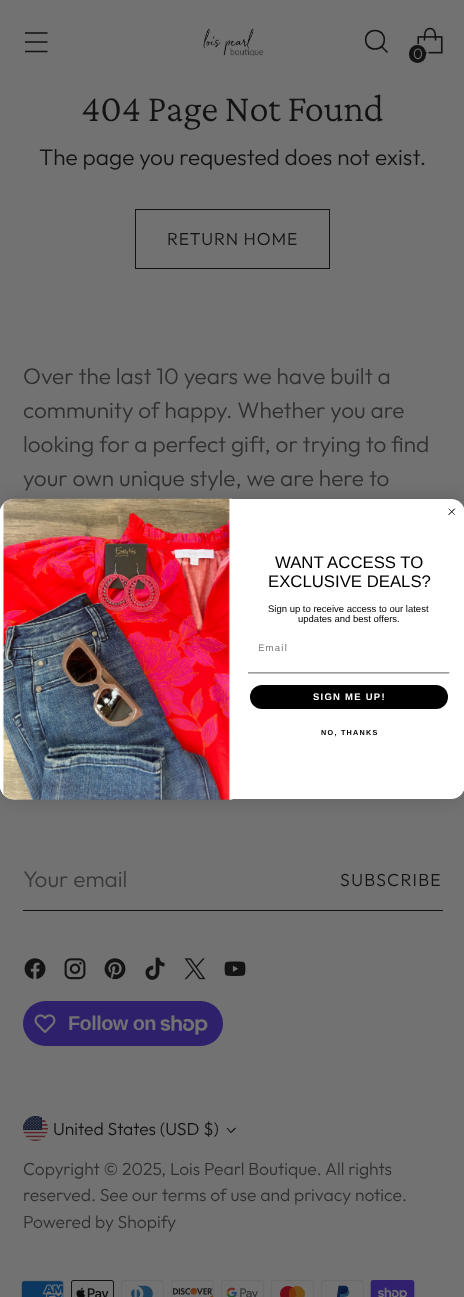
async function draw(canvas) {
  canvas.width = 464
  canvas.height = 1297
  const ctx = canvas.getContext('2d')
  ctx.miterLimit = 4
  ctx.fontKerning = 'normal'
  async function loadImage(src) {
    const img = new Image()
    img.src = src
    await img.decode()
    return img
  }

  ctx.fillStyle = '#727272'
  ctx.fillRect(0, 0, 464, 1297)
  ctx.beginPath()
  ctx.moveTo(25, 42)
  ctx.lineTo(47.5, 42)
  ctx.moveTo(25, 33)
  ctx.lineTo(47.5, 33)
  ctx.moveTo(25, 51.5)
  ctx.lineTo(47.5, 51.5)
  ctx.strokeStyle = '#131313'
  ctx.lineWidth = 1.6
  ctx.stroke()
  ctx.drawImage(await loadImage('image0.png'), 203, 28, 61, 29)
  ctx.beginPath()
  ctx.moveTo(375, 49)
  ctx.bezierCurveTo(387.5, 49, 387.5, 30.5, 375, 30.5)
  ctx.bezierCurveTo(362.5, 30.5, 362.5, 49, 375, 49)
  ctx.closePath()
  ctx.lineCap = 'round'
  ctx.stroke()
  ctx.beginPath()
  ctx.moveTo(381.5, 46.5)
  ctx.lineTo(387.5, 52.5)
  ctx.lineCap = 'butt'
  ctx.stroke()
  ctx.drawImage(await loadImage('image1.png'), 417, 27, 26, 27)
  ctx.beginPath()
  ctx.arc(418.5, 54.5, 9.5, 0, 2 * Math.PI)
  ctx.strokeStyle = '#727272'
  ctx.lineWidth = 2
  ctx.stroke()
  ctx.fillStyle = '#131313'
  ctx.beginPath()
  ctx.roundRect(409, 45, 17, 18, 8.5)
  ctx.fill()
  ctx.font = '300 15px Outfit'
  ctx.fillStyle = '#727272'
  ctx.fillText('0', 413, 59)
  ctx.letterSpacing = '-0.4px'
  ctx.font = '300 39px Crimson Pro'
  ctx.fillStyle = '#131313'
  ctx.fillText('404 Page Not Found', 81, 121)
  ctx.letterSpacing = '0px'
  ctx.font = '300 22.6px Outfit'
  ctx.fillText('The page you requested does not exist.', 39, 165)
  ctx.strokeStyle = '#131313'
  ctx.lineWidth = 1
  ctx.strokeRect(135.5, 209.5, 194, 59)
  ctx.letterSpacing = '0.9px'
  ctx.font = '300 17.5px Outfit'
  ctx.fillText('RETURN HOME', 167, 245)
  ctx.letterSpacing = '0px'
  ctx.font = '300 22.6px Outfit'
  ctx.fillStyle = '#2f2f2f'
  ctx.fillText('Over the last 10 years we have built a', 23, 384)
  ctx.fillText('community of happy. Whether you are', 23, 418)
  ctx.fillText('looking for a perfect gift, or trying to find', 23, 452)
  ctx.fillText('your own unique style, we are here to', 23, 486)
  ctx.fillStyle = '#131313'
  ctx.fillRect(23, 910, 420, 1)
  ctx.fillStyle = '#393939'
  ctx.fillText('Your email', 23, 887)
  ctx.letterSpacing = '1.25px'
  ctx.font = '300 17.5px Outfit'
  ctx.fillStyle = '#131313'
  ctx.fillText('SUBSCRIBE', 340, 886)
  ctx.drawImage(await loadImage('image2.png'), 24, 958, 22, 21)
  ctx.drawImage(await loadImage('image3.png'), 64, 958, 22, 22)
  ctx.drawImage(await loadImage('image4.png'), 104, 958, 22, 22)
  ctx.drawImage(await loadImage('image5.png'), 145, 957, 20, 23)
  ctx.drawImage(await loadImage('image6.png'), 184, 958, 22, 22)
  ctx.drawImage(await loadImage('image7.png'), 224, 961, 22, 16)
  ctx.fillStyle = '#2e206a'
  ctx.beginPath()
  ctx.roundRect(23, 1001, 200, 45, 22.5)
  ctx.fill()
  ctx.drawImage(await loadImage('image8.png'), 34, 1014, 22, 20)
  ctx.letterSpacing = '-0.6px'
  ctx.font = 'bold 20px Liberation Sans'
  ctx.fillStyle = '#727272'
  ctx.fillText('Follow on', 68, 1030)
  ctx.drawImage(await loadImage('image9.png'), 160, 1015, 48, 20)
  ctx.drawImage(await loadImage('image10.png'), 23, 1116, 25, 25)
  ctx.letterSpacing = '0px'
  ctx.font = '300 17.5px Outfit'
  ctx.fillStyle = '#131313'
  ctx.fillText('United States (USD $)', 53, 1135)
  ctx.beginPath()
  ctx.moveTo(227, 1128)
  ctx.lineTo(231, 1132.5)
  ctx.lineTo(235.5, 1128)
  ctx.lineWidth = 1.1
  ctx.stroke()
  ctx.fillStyle = '#2f2f2f'
  ctx.fillText('Copyright © 2025, Lois Pearl Boutique.', 23, 1175)
  ctx.fillText('All rights', 325, 1175)
  ctx.fillText('reserved. See our terms of use and privacy notice.', 23, 1201)
  ctx.fillText('Powered by Shopify', 23, 1228)
  ctx.drawImage(await loadImage('image11.png'), 21, 1280, 43, 17)
  ctx.drawImage(await loadImage('image12.png'), 71, 1280, 43, 17)
  ctx.drawImage(await loadImage('image13.png'), 121, 1280, 43, 17)
  ctx.drawImage(await loadImage('image14.png'), 171, 1280, 43, 17)
  ctx.drawImage(await loadImage('image15.png'), 221, 1280, 43, 17)
  ctx.drawImage(await loadImage('image16.png'), 271, 1280, 43, 17)
  ctx.drawImage(await loadImage('image17.png'), 321, 1280, 43, 17)
  ctx.drawImage(await loadImage('image18.png'), 370, 1280, 45, 17)
  ctx.fillStyle = '#00000026'
  ctx.filter = 'blur(9px)'
  ctx.beginPath()
  ctx.roundRect(0, 499, 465, 300, 14)
  ctx.fill()
  ctx.filter = 'none'
  ctx.fillStyle = '#fff'
  ctx.beginPath()
  ctx.roundRect(0, 499, 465, 300, 14)
  ctx.fill()
  ctx.beginPath()
  ctx.moveTo(449, 509)
  ctx.lineTo(454.5, 514.5)
  ctx.moveTo(449, 514.5)
  ctx.lineTo(454.5, 509)
  ctx.closePath()
  ctx.strokeStyle = '#000'
  ctx.lineWidth = 0.7
  ctx.lineCap = 'round'
  ctx.lineJoin = 'round'
  ctx.stroke()
  ctx.fillStyle = '#fefefe'
  ctx.beginPath()
  ctx.roundRect(0, 499, 233, 300, [14, 0, 0, 14])
  ctx.fill()
  ctx.drawImage(await loadImage('image19.png'), 0, 498, 233, 302)
  ctx.font = '16.75px Liberation Sans'
  ctx.fillStyle = '#000'
  ctx.fillText('WANT ACCESS TO', 275, 568)
  ctx.fillText('EXCLUSIVE DEALS?', 268, 587)
  ctx.font = '9.5px Liberation Sans'
  ctx.fillText('Sign up to receive access to our latest', 268, 612)
  ctx.fillText('updates and best offers.', 298, 622)
  ctx.save()
  ctx.beginPath()
  ctx.rect(259, 644, 190, 10)
  ctx.clip()
  ctx.letterSpacing = '1.25px'
  ctx.fillStyle = '#727272'
  ctx.fillText('Email', 258, 651)
  ctx.restore()
  ctx.drawImage(await loadImage('image20.png'), 248, 672, 202, 2)
  ctx.beginPath()
  ctx.roundRect(250, 685, 198, 24, 12)
  ctx.fill()
  ctx.letterSpacing = '1.25px'
  ctx.font = 'bold 9.5px Liberation Sans'
  ctx.fillStyle = '#fff'
  ctx.fillText('SIGN ME UP!', 313, 700)
  ctx.font = 'bold 7.25px Liberation Sans'
  ctx.fillStyle = '#000'
  ctx.fillText('NO, THANKS', 321, 735)
}

draw(document.querySelector('canvas'))
